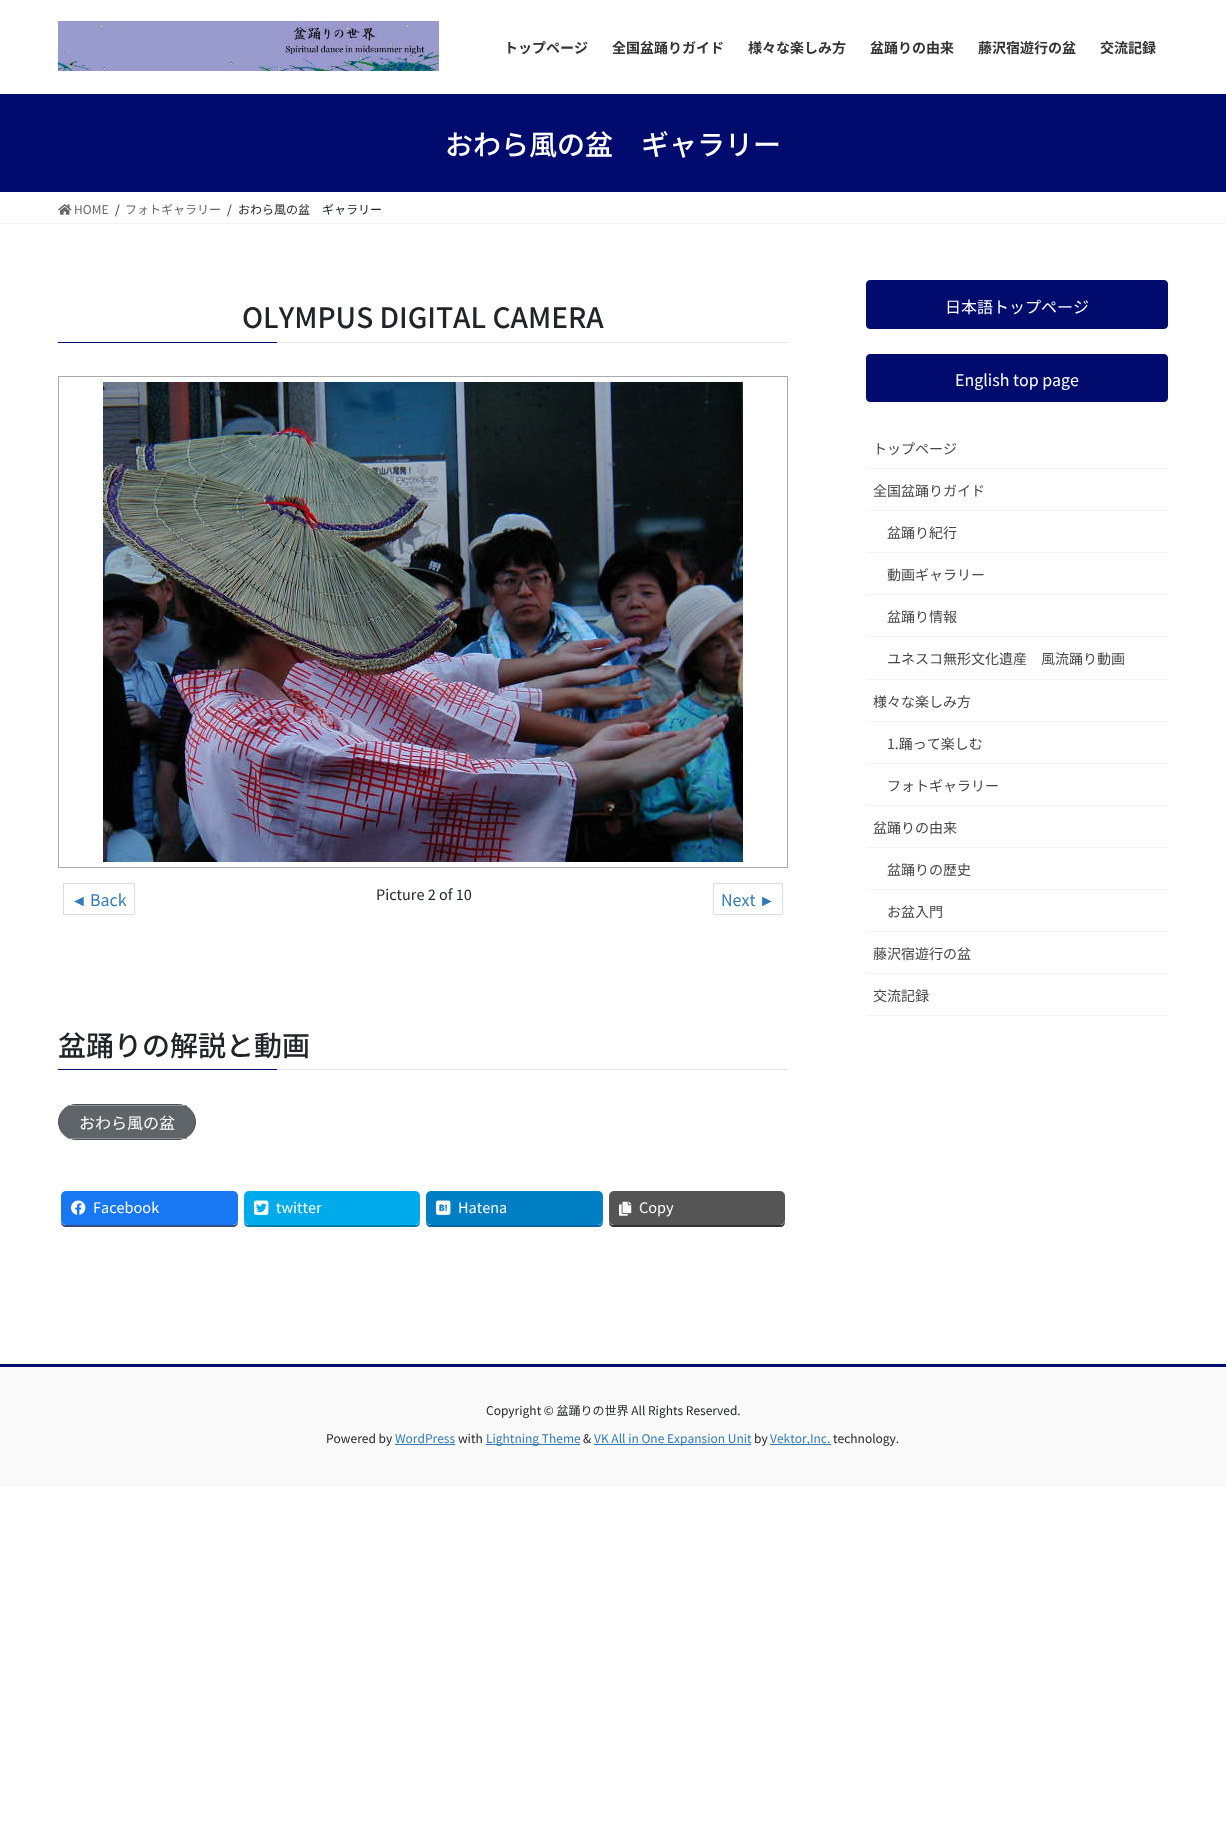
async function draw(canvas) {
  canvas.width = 1226
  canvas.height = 1842
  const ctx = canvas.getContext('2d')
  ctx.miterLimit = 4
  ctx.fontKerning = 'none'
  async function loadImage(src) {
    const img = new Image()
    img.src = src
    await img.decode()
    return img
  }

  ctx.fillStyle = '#fff'
  ctx.fillRect(0, 0, 1226, 1842)
  ctx.drawImage(await loadImage('image0.png'), 58, 21, 381, 50)
  ctx.font = 'bold 14px Noto Sans JP'
  ctx.fillStyle = '#333'
  ctx.fillText('トップページ', 504, 53)
  ctx.fillText('全国盆踊りガイド', 612, 53)
  ctx.fillText('様々な楽しみ方', 748, 53)
  ctx.fillText('盆踊りの由来', 870, 53)
  ctx.fillText('藤沢宿遊行の盆', 978, 53)
  ctx.fillText('交流記録', 1100, 53)
  ctx.fillStyle = '#000c6d'
  ctx.fillRect(0, 94, 1226, 98)
  ctx.font = '500 28px Noto Sans JP'
  ctx.fillStyle = '#fff'
  ctx.fillText('おわら風の盆　ギャラリー', 445, 155)
  ctx.fillStyle = '#f2f2f2'
  ctx.fillRect(0, 223, 1226, 1)
  ctx.drawImage(await loadImage('image1.png'), 58, 204, 14, 11)
  ctx.font = '12px Noto Sans JP'
  ctx.fillStyle = '#666'
  ctx.fillText('HOME', 74, 214)
  ctx.fillStyle = '#212529'
  ctx.fillText('/', 115, 214)
  ctx.fillStyle = '#666'
  ctx.fillText('フォトギャラリー', 125, 214)
  ctx.fillStyle = '#212529'
  ctx.fillText('/', 227, 214)
  ctx.fillText('おわら風の盆　ギャラリー', 238, 214)
  ctx.fillStyle = '#e6e6e6'
  ctx.fillRect(277, 342, 511, 1)
  ctx.font = '500 28px Noto Sans JP'
  ctx.fillStyle = '#212529'
  ctx.fillText('OLYMPUS DIGITAL CAMERA', 242, 328)
  ctx.fillStyle = '#000c6d'
  ctx.fillRect(58, 342, 219, 1)
  ctx.strokeStyle = '#a9a9a9'
  ctx.strokeRect(58.5, 376.5, 729, 491)
  ctx.drawImage(await loadImage('image2.png'), 103, 382, 640, 480)
  ctx.strokeStyle = '#ddd'
  ctx.strokeRect(63.5, 883.5, 71, 31)
  ctx.font = '16px Liberation Sans'
  ctx.fillStyle = '#337ab7'
  ctx.fillText('◄', 71, 906)
  ctx.font = '16px Noto Sans JP'
  ctx.fillText('Back', 90, 906)
  ctx.font = '14.5px Noto Sans JP'
  ctx.fillStyle = '#212529'
  ctx.fillText('Picture 2 of 10', 376, 900)
  ctx.strokeRect(713.5, 883.5, 69, 31)
  ctx.font = '16px Noto Sans JP'
  ctx.fillStyle = '#337ab7'
  ctx.fillText('Next', 721, 906)
  ctx.font = '16px Liberation Sans'
  ctx.fillText('►', 759, 906)
  ctx.fillStyle = '#e6e6e6'
  ctx.fillRect(277, 1069, 511, 1)
  ctx.font = '500 28px Noto Sans JP'
  ctx.fillStyle = '#212529'
  ctx.fillText('盆踊りの解説と動画', 58, 1056)
  ctx.fillStyle = '#000c6d'
  ctx.fillRect(58, 1069, 219, 1)
  ctx.fillStyle = '#5f6469'
  ctx.beginPath()
  ctx.roundRect(58.5, 1104.5, 137, 35, 17.5)
  ctx.fill()
  ctx.strokeStyle = '#4c5054'
  ctx.stroke()
  ctx.fillStyle = '#8f9396'
  ctx.fillRect(68, 1105, 119, 1)
  ctx.fillRect(68, 1138, 119, 1)
  ctx.font = '16px Noto Sans JP'
  ctx.fillStyle = '#fff'
  ctx.fillText('おわら風の盆', 79, 1129)
  ctx.fillStyle = '#344e84'
  ctx.beginPath()
  ctx.moveTo(61, 1220)
  ctx.lineTo(61, 1222)
  ctx.bezierCurveTo(61, 1225, 63, 1227, 66, 1227)
  ctx.lineTo(233, 1227)
  ctx.bezierCurveTo(236, 1227, 238, 1225, 238, 1222)
  ctx.lineTo(238, 1220)
  ctx.bezierCurveTo(238, 1223, 236, 1225, 233, 1225)
  ctx.lineTo(66, 1225)
  ctx.bezierCurveTo(63, 1225, 61, 1223, 61, 1220)
  ctx.closePath()
  ctx.fill()
  ctx.fillStyle = '#1877f2'
  ctx.beginPath()
  ctx.roundRect(61, 1191, 177, 34, 5)
  ctx.fill()
  ctx.drawImage(await loadImage('image3.png'), 71, 1200, 15, 15)
  ctx.font = '14.5px Noto Sans JP'
  ctx.fillStyle = '#fff'
  ctx.fillText('Facebook', 93, 1213)
  ctx.fillStyle = '#007eaa'
  ctx.beginPath()
  ctx.moveTo(244, 1220)
  ctx.lineTo(244, 1222)
  ctx.bezierCurveTo(244, 1225, 246, 1227, 249, 1227)
  ctx.lineTo(415, 1227)
  ctx.bezierCurveTo(418, 1227, 420, 1225, 420, 1222)
  ctx.lineTo(420, 1220)
  ctx.bezierCurveTo(420, 1223, 418, 1225, 415, 1225)
  ctx.lineTo(249, 1225)
  ctx.bezierCurveTo(246, 1225, 244, 1223, 244, 1220)
  ctx.closePath()
  ctx.fill()
  ctx.fillStyle = '#00abec'
  ctx.beginPath()
  ctx.roundRect(244, 1191, 176, 34, 5)
  ctx.fill()
  ctx.drawImage(await loadImage('image4.png'), 254, 1200, 15, 15)
  ctx.fillStyle = '#fff'
  ctx.fillText('twitter', 276, 1213)
  ctx.fillStyle = '#00679f'
  ctx.beginPath()
  ctx.moveTo(426, 1220)
  ctx.lineTo(426, 1222)
  ctx.bezierCurveTo(426, 1225, 428, 1227, 431, 1227)
  ctx.lineTo(598, 1227)
  ctx.bezierCurveTo(601, 1227, 603, 1225, 603, 1222)
  ctx.lineTo(603, 1220)
  ctx.bezierCurveTo(603, 1223, 601, 1225, 598, 1225)
  ctx.lineTo(431, 1225)
  ctx.bezierCurveTo(428, 1225, 426, 1223, 426, 1220)
  ctx.closePath()
  ctx.fill()
  ctx.fillStyle = '#007fc5'
  ctx.beginPath()
  ctx.roundRect(426, 1191, 177, 34, 5)
  ctx.fill()
  ctx.drawImage(await loadImage('image5.png'), 436, 1200, 15, 15)
  ctx.fillStyle = '#fff'
  ctx.fillText('Hatena', 458, 1213)
  ctx.fillStyle = '#333'
  ctx.beginPath()
  ctx.moveTo(609, 1220)
  ctx.lineTo(609, 1222)
  ctx.bezierCurveTo(609, 1225, 611, 1227, 614, 1227)
  ctx.lineTo(780, 1227)
  ctx.bezierCurveTo(783, 1227, 785, 1225, 785, 1222)
  ctx.lineTo(785, 1220)
  ctx.bezierCurveTo(785, 1223, 783, 1225, 780, 1225)
  ctx.lineTo(614, 1225)
  ctx.bezierCurveTo(611, 1225, 609, 1223, 609, 1220)
  ctx.closePath()
  ctx.fill()
  ctx.fillStyle = '#555'
  ctx.beginPath()
  ctx.roundRect(609, 1191, 176, 34, 5)
  ctx.fill()
  ctx.drawImage(await loadImage('image6.png'), 619, 1201, 13, 15)
  ctx.fillStyle = '#fff'
  ctx.fillText('Copy', 639, 1213)
  ctx.fillStyle = '#000c6d'
  ctx.beginPath()
  ctx.roundRect(866.5, 280.5, 301, 48, 3.5)
  ctx.fill()
  ctx.strokeStyle = '#000c6d'
  ctx.stroke()
  ctx.font = '16px Noto Sans JP'
  ctx.fillStyle = '#fff'
  ctx.fillText('日本語トップページ', 945, 313)
  ctx.fillStyle = '#000c6d'
  ctx.beginPath()
  ctx.roundRect(866.5, 354.5, 301, 47, 3.5)
  ctx.fill()
  ctx.stroke()
  ctx.fillStyle = '#fff'
  ctx.fillText('English top page', 955, 386)
  ctx.fillStyle = '#f2f2f2'
  ctx.fillRect(866, 468, 302, 1)
  ctx.font = '14px Noto Sans JP'
  ctx.fillStyle = '#464646'
  ctx.fillText('トップページ', 873, 454)
  ctx.fillStyle = '#f2f2f2'
  ctx.fillRect(866, 510, 302, 1)
  ctx.fillStyle = '#464646'
  ctx.fillText('全国盆踊りガイド', 873, 496)
  ctx.fillStyle = '#f2f2f2'
  ctx.fillRect(866, 552, 302, 1)
  ctx.fillStyle = '#464646'
  ctx.fillText('盆踊り紀行', 887, 538)
  ctx.fillStyle = '#f2f2f2'
  ctx.fillRect(866, 594, 302, 1)
  ctx.fillStyle = '#464646'
  ctx.fillText('動画ギャラリー', 887, 580)
  ctx.fillStyle = '#f2f2f2'
  ctx.fillRect(866, 636, 302, 1)
  ctx.fillStyle = '#464646'
  ctx.fillText('盆踊り情報', 887, 622)
  ctx.fillStyle = '#f2f2f2'
  ctx.fillRect(866, 679, 302, 1)
  ctx.fillStyle = '#464646'
  ctx.fillText('ユネスコ無形文化遺産　風流踊り動画', 887, 664)
  ctx.fillStyle = '#f2f2f2'
  ctx.fillRect(866, 721, 302, 1)
  ctx.fillStyle = '#464646'
  ctx.fillText('様々な楽しみ方', 873, 707)
  ctx.fillStyle = '#f2f2f2'
  ctx.fillRect(866, 763, 302, 1)
  ctx.fillStyle = '#464646'
  ctx.fillText('1.踊って楽しむ', 887, 749)
  ctx.fillStyle = '#f2f2f2'
  ctx.fillRect(866, 805, 302, 1)
  ctx.fillStyle = '#464646'
  ctx.fillText('フォトギャラリー', 887, 791)
  ctx.fillStyle = '#f2f2f2'
  ctx.fillRect(866, 847, 302, 1)
  ctx.fillStyle = '#464646'
  ctx.fillText('盆踊りの由来', 873, 833)
  ctx.fillStyle = '#f2f2f2'
  ctx.fillRect(866, 889, 302, 1)
  ctx.fillStyle = '#464646'
  ctx.fillText('盆踊りの歴史', 887, 875)
  ctx.fillStyle = '#f2f2f2'
  ctx.fillRect(866, 931, 302, 1)
  ctx.fillStyle = '#464646'
  ctx.fillText('お盆入門', 887, 917)
  ctx.fillStyle = '#f2f2f2'
  ctx.fillRect(866, 973, 302, 1)
  ctx.fillStyle = '#464646'
  ctx.fillText('藤沢宿遊行の盆', 873, 959)
  ctx.fillStyle = '#f2f2f2'
  ctx.fillRect(866, 1015, 302, 1)
  ctx.fillStyle = '#464646'
  ctx.fillText('交流記録', 873, 1001)
  ctx.fillStyle = '#f9f9f9'
  ctx.fillRect(0, 1367, 1226, 120)
  ctx.fillStyle = '#000c6d'
  ctx.fillRect(0, 1364, 1226, 3)
  ctx.font = '12px Noto Sans JP'
  ctx.fillStyle = '#212529'
  ctx.fillText('Copyright © 盆踊りの世界 All Rights Reserved.', 486, 1415)
  ctx.fillText('Powered by', 326, 1443)
  ctx.fillStyle = '#337ab7'
  ctx.fillText('WordPress', 395, 1443)
  ctx.fillRect(395, 1444, 60, 1)
  ctx.fillStyle = '#212529'
  ctx.fillText('with', 458, 1443)
  ctx.fillStyle = '#337ab7'
  ctx.fillRect(486, 1444, 94, 1)
  ctx.fillText('Lightning Theme', 486, 1443)
  ctx.fillStyle = '#212529'
  ctx.fillText('&', 583, 1443)
  ctx.fillStyle = '#337ab7'
  ctx.fillRect(594, 1444, 157, 1)
  ctx.fillText('VK All in One Expansion Unit', 594, 1443)
  ctx.fillStyle = '#212529'
  ctx.fillText('by', 754, 1443)
  ctx.fillStyle = '#337ab7'
  ctx.fillRect(770, 1444, 61, 1)
  ctx.fillText('Vektor,Inc.', 770, 1443)
  ctx.fillStyle = '#212529'
  ctx.fillText('technology.', 833, 1443)
}

draw(document.querySelector('canvas'))
